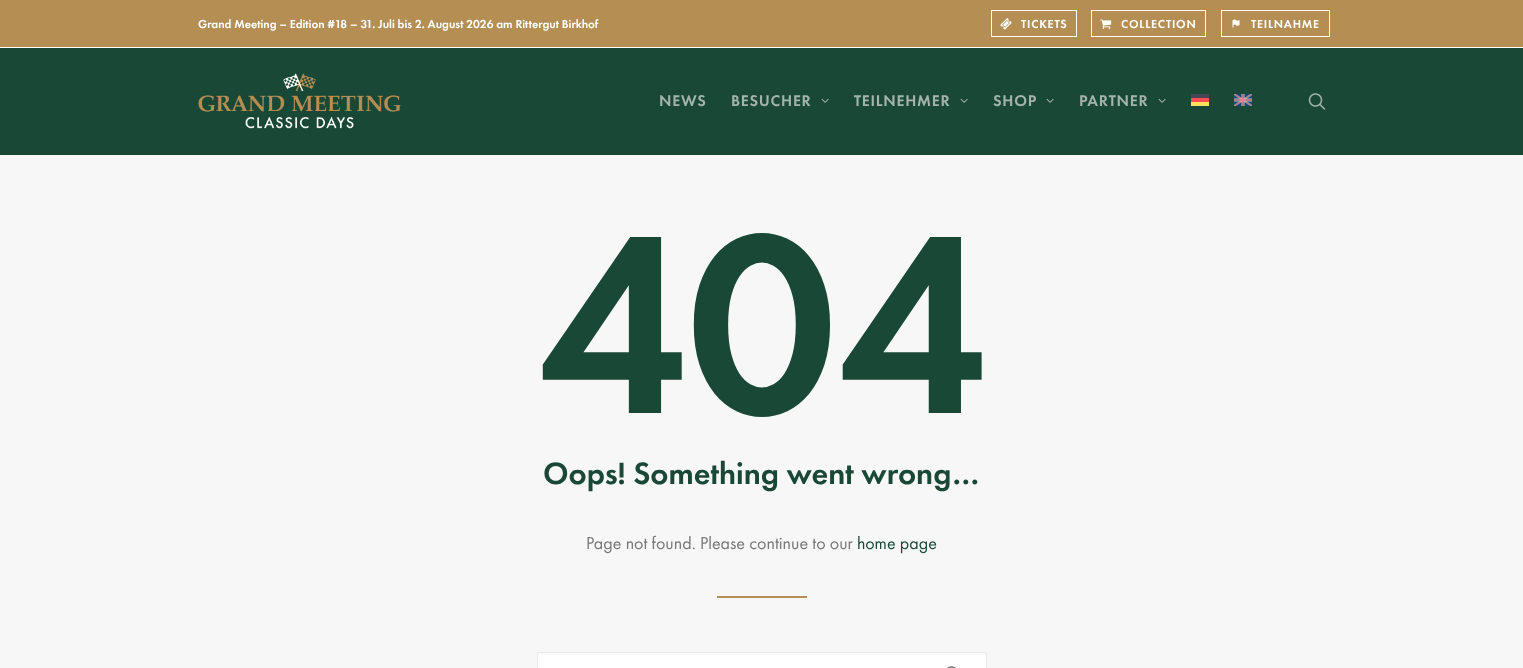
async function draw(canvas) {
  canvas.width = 1523
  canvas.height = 668
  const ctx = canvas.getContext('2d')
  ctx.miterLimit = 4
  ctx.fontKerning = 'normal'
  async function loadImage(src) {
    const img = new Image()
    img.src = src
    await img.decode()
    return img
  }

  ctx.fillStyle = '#f7f7f7'
  ctx.fillRect(0, 0, 1523, 668)
  ctx.fillStyle = '#b58e53'
  ctx.fillRect(0, 0, 1523, 47)
  ctx.fillStyle = '#fff'
  ctx.fillRect(0, 47, 1523, 1)
  ctx.font = '500 12px Futura PT'
  ctx.fillText('Grand Meeting – Edition #18 – 31. Juli bis 2. August 2026 am Rittergut Birkhof', 198, 28)
  ctx.strokeStyle = '#fff'
  ctx.strokeRect(991.5, 10.5, 85, 26)
  ctx.drawImage(await loadImage('image0.png'), 1000, 18, 12, 12)
  ctx.letterSpacing = '0.75px'
  ctx.fillText('TICKETS', 1021, 28)
  ctx.strokeRect(1091.5, 10.5, 114, 26)
  ctx.drawImage(await loadImage('image1.png'), 1100, 19, 12, 10)
  ctx.fillText('COLLECTION', 1121, 28)
  ctx.strokeRect(1221.5, 10.5, 108, 26)
  ctx.drawImage(await loadImage('image2.png'), 1232, 19, 8, 9)
  ctx.fillText('TEILNAHME', 1251, 28)
  ctx.fillStyle = '#194936'
  ctx.fillRect(0, 48, 1523, 107)
  ctx.drawImage(await loadImage('image3.png'), 198, 73, 203, 56)
  ctx.font = '500 16px Futura PT'
  ctx.fillStyle = '#a4b3ac'
  ctx.fillText('NEWS', 659, 106)
  ctx.fillText('BESUCHER', 731, 106)
  ctx.drawImage(await loadImage('image4.png'), 821, 98, 8, 5)
  ctx.fillText('TEILNEHMER', 854, 106)
  ctx.drawImage(await loadImage('image4.png'), 960, 98, 8, 5)
  ctx.fillText('SHOP', 993, 106)
  ctx.drawImage(await loadImage('image4.png'), 1046, 98, 8, 5)
  ctx.fillText('PARTNER', 1079, 106)
  ctx.drawImage(await loadImage('image4.png'), 1158, 98, 8, 5)
  ctx.fillStyle = '#ff4b55'
  ctx.fillRect(1191, 98, 18, 4)
  ctx.fillStyle = '#ffe15a'
  ctx.fillRect(1191, 102, 18, 4)
  ctx.fillStyle = '#464655'
  ctx.fillRect(1191, 94, 18, 4)
  ctx.drawImage(await loadImage('image5.png'), 1234, 94, 18, 12)
  ctx.drawImage(await loadImage('image6.png'), 1308, 93, 18, 17)
  ctx.letterSpacing = '0px'
  ctx.font = '500 264px Futura PT'
  ctx.fillStyle = '#194936'
  ctx.fillText('404', 537, 413)
  ctx.font = '500 32px Futura PT'
  ctx.fillText('Oops! Something went wrong…', 543, 484)
  ctx.font = '18px Futura PT'
  ctx.fillStyle = '#777'
  ctx.fillText('Page not found. Please continue to our', 586, 549)
  ctx.fillStyle = '#194936'
  ctx.fillText('home page', 857, 549)
  ctx.fillStyle = '#b58e53'
  ctx.fillRect(717, 596, 90, 2)
  ctx.fillStyle = '#fff'
  ctx.beginPath()
  ctx.roundRect(537, 652, 450, 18, 2)
  ctx.fill()
  ctx.fillStyle = '#f9f9f9'
  ctx.beginPath()
  ctx.moveTo(539, 655)
  ctx.lineTo(985, 655)
  ctx.bezierCurveTo(986, 655, 986, 655, 986, 656)
  ctx.lineTo(986, 653)
  ctx.lineTo(985, 653)
  ctx.lineTo(539, 653)
  ctx.bezierCurveTo(538, 653, 538, 655, 538, 656)
  ctx.bezierCurveTo(538, 655, 538, 655, 539, 655)
  ctx.closePath()
  ctx.fill()
  ctx.beginPath()
  ctx.roundRect(537.5, 652.5, 449, 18, 1.5)
  ctx.strokeStyle = '#eaeaea'
  ctx.stroke()
  ctx.drawImage(await loadImage('image7.png'), 947, 666, 9, 2)
}

draw(document.querySelector('canvas'))
